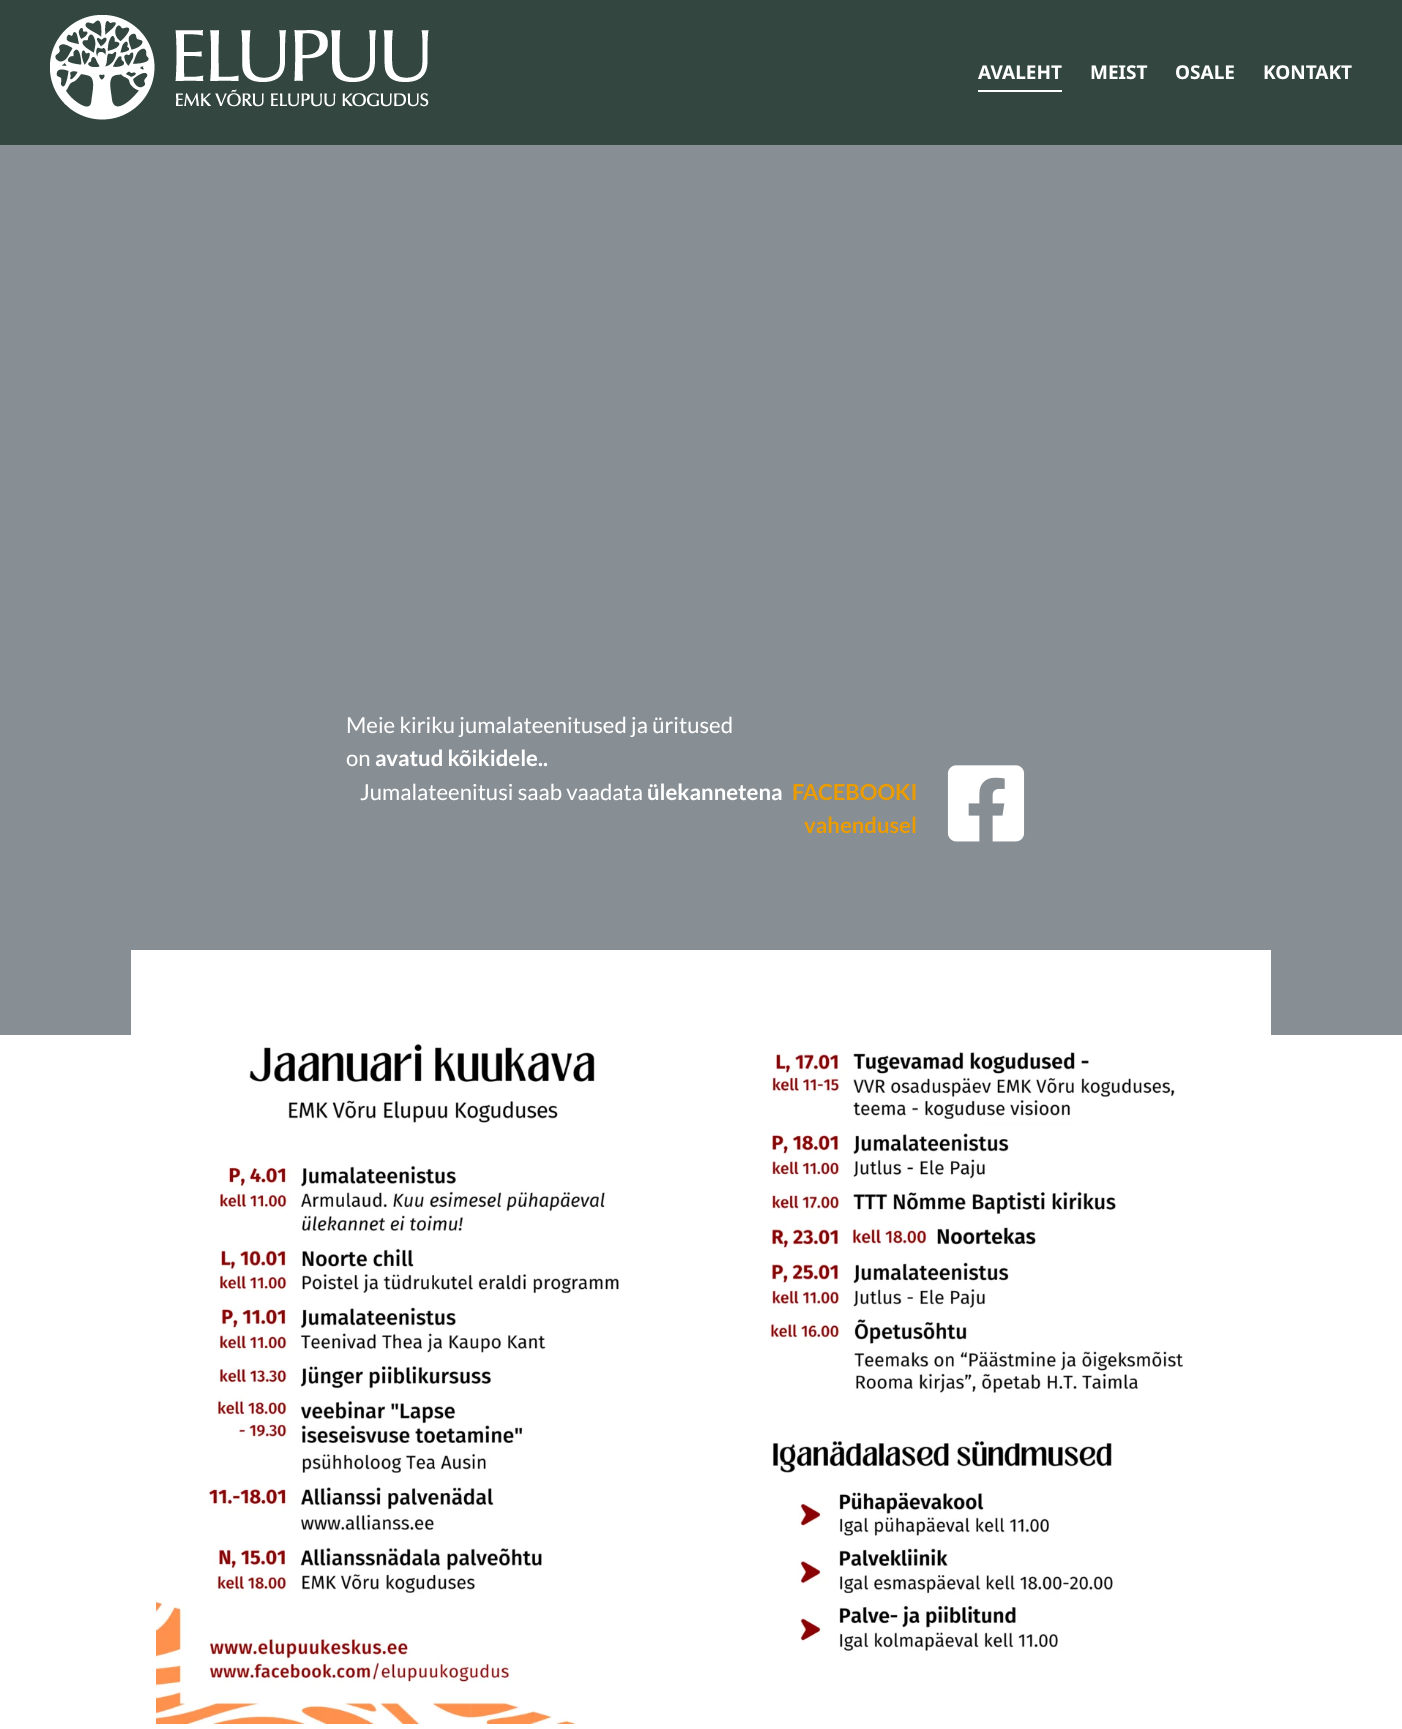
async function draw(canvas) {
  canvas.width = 1402
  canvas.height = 1729
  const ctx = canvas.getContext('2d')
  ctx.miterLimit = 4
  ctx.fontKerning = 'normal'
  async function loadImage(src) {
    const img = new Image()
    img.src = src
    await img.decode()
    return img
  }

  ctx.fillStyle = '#fff'
  ctx.fillRect(0, 0, 1402, 1729)
  ctx.fillStyle = '#334740'
  ctx.fillRect(0, 0, 1402, 145)
  ctx.drawImage(await loadImage('image0.png'), 50, 15, 379, 105)
  ctx.font = 'bold 19px Noto Sans'
  ctx.fillStyle = '#fff'
  ctx.fillText('AVALEHT', 978, 79)
  ctx.fillRect(978, 90, 84, 2)
  ctx.fillText('MEIST', 1090, 79)
  ctx.fillText('OSALE', 1175, 79)
  ctx.fillText('KONTAKT', 1263, 79)
  ctx.fillStyle = '#878e94'
  ctx.fillRect(0, 145, 1402, 890)
  ctx.font = '22.1px Lato'
  ctx.fillStyle = '#fff'
  ctx.fillText('Meie kiriku jumalateenitused ja üritused', 346, 733)
  ctx.fillText('on', 346, 766)
  ctx.font = 'bold 22.1px Lato'
  ctx.fillText('avatud kõikidele..', 375, 766)
  ctx.font = '22.1px Lato'
  ctx.fillText('Jumalateenitusi saab vaadata', 360, 800)
  ctx.font = 'bold 22.1px Lato'
  ctx.fillText('ülekannetena', 647, 800)
  ctx.fillStyle = '#ea9c00'
  ctx.fillText('FACEBOOKI', 792, 800)
  ctx.fillText('vahendusel', 804, 833)
  ctx.drawImage(await loadImage('image1.png'), 947, 765, 78, 77)
  ctx.fillStyle = '#fff'
  ctx.fillRect(131, 950, 1140, 85)
  ctx.drawImage(await loadImage('image2.png'), 156, 1043, 463, 681)
  ctx.drawImage(await loadImage('image3.png'), 770, 1051, 413, 600)
}

draw(document.querySelector('canvas'))
